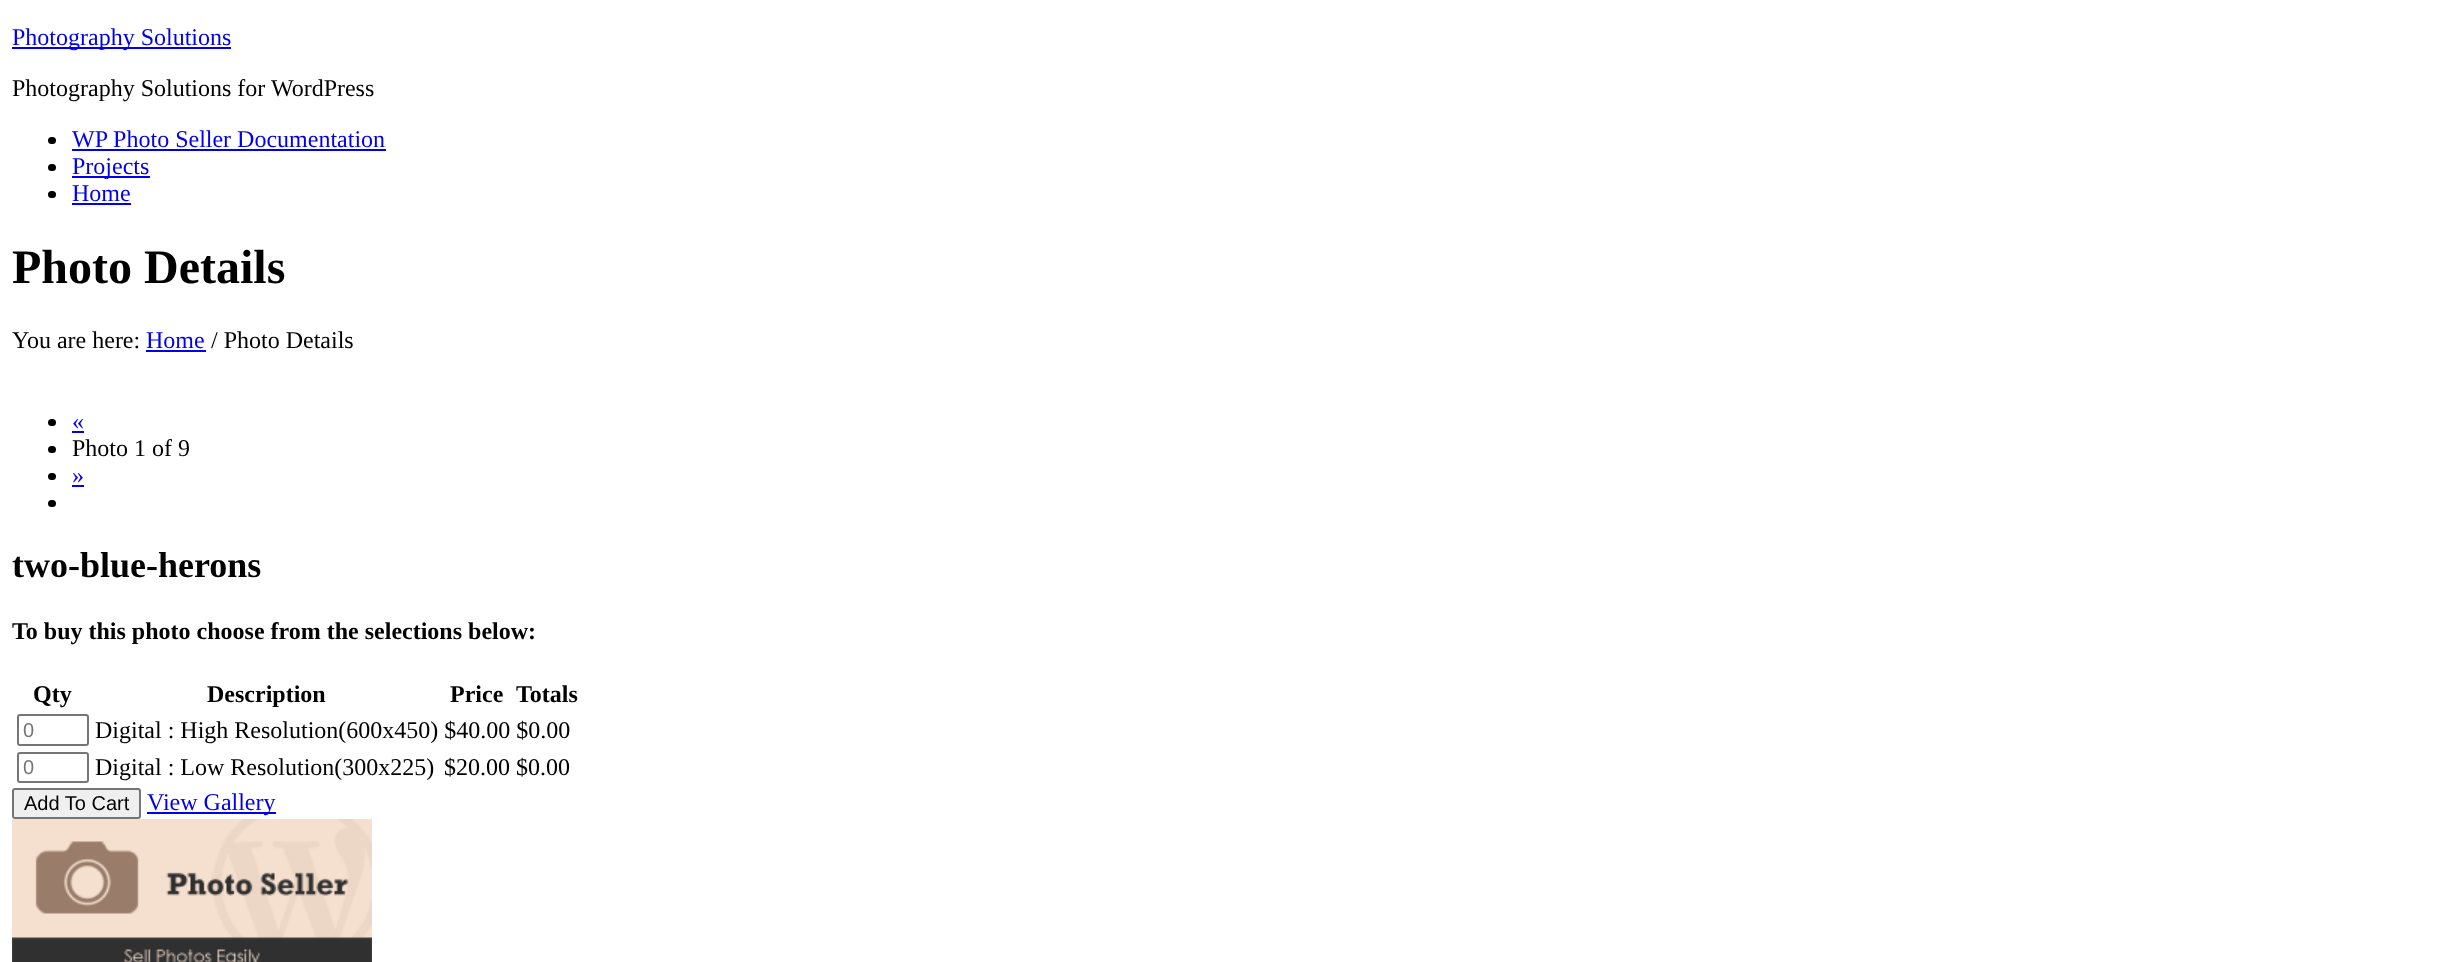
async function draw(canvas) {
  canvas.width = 2444
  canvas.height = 962
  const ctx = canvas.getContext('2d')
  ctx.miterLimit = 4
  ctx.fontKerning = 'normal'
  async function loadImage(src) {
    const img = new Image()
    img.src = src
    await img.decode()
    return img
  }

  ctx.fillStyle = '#fff'
  ctx.fillRect(0, 0, 2444, 962)
  ctx.fillStyle = '#00e'
  ctx.fillRect(12, 47, 219, 2)
  ctx.font = '24px Liberation Serif'
  ctx.fillText('Photography Solutions', 12, 45)
  ctx.fillStyle = '#000'
  ctx.fillText('Photography Solutions for WordPress', 12, 96)
  ctx.beginPath()
  ctx.roundRect(48, 137, 8, 7, 3.5)
  ctx.fill()
  ctx.fillStyle = '#00e'
  ctx.fillText('WP Photo Seller Documentation', 72, 147)
  ctx.fillRect(72, 149, 314, 2)
  ctx.fillStyle = '#000'
  ctx.beginPath()
  ctx.roundRect(48, 164, 8, 7, 3.5)
  ctx.fill()
  ctx.fillStyle = '#00e'
  ctx.fillRect(72, 176, 78, 2)
  ctx.fillText('Projects', 72, 174)
  ctx.fillStyle = '#000'
  ctx.beginPath()
  ctx.roundRect(48, 191, 8, 7, 3.5)
  ctx.fill()
  ctx.fillStyle = '#00e'
  ctx.fillText('Home', 72, 201)
  ctx.fillRect(72, 203, 59, 2)
  ctx.font = 'bold 48px Liberation Serif'
  ctx.fillStyle = '#000'
  ctx.fillText('Photo Details', 12, 283)
  ctx.font = '24px Liberation Serif'
  ctx.fillText('You are here:', 12, 348)
  ctx.fillStyle = '#00e'
  ctx.fillText('Home', 146, 348)
  ctx.fillRect(146, 350, 60, 2)
  ctx.fillStyle = '#000'
  ctx.fillText('/ Photo Details', 211, 348)
  ctx.beginPath()
  ctx.roundRect(48, 419, 8, 7, 3.5)
  ctx.fill()
  ctx.fillStyle = '#00e'
  ctx.fillText('«', 72, 429)
  ctx.fillRect(72, 431, 12, 2)
  ctx.fillStyle = '#000'
  ctx.beginPath()
  ctx.roundRect(48, 446, 8, 7, 3.5)
  ctx.fill()
  ctx.fillText('Photo 1 of 9', 72, 456)
  ctx.beginPath()
  ctx.roundRect(48, 473, 8, 7, 3.5)
  ctx.fill()
  ctx.fillStyle = '#00e'
  ctx.fillText('»', 72, 483)
  ctx.fillRect(72, 485, 12, 2)
  ctx.fillStyle = '#000'
  ctx.beginPath()
  ctx.roundRect(48, 500, 8, 7, 3.5)
  ctx.fill()
  ctx.font = 'bold 36px Liberation Serif'
  ctx.fillText('two-blue-herons', 12, 577)
  ctx.font = 'bold 24px Liberation Serif'
  ctx.fillText('To buy this photo choose from the selections below:', 12, 639)
  ctx.fillText('Qty', 33, 702)
  ctx.fillText('Description', 207, 702)
  ctx.fillText('Price', 450, 702)
  ctx.fillText('Totals', 516, 702)
  ctx.beginPath()
  ctx.roundRect(18, 715, 70, 30, 2)
  ctx.strokeStyle = '#767676'
  ctx.lineWidth = 2
  ctx.stroke()
  ctx.font = '20px Liberation Sans'
  ctx.fillStyle = '#757575'
  ctx.fillText('0', 23, 737)
  ctx.font = '24px Liberation Serif'
  ctx.fillStyle = '#000'
  ctx.fillText('Digital : High Resolution(600x450) $40.00 $0.00', 95, 738)
  ctx.beginPath()
  ctx.roundRect(18, 753, 70, 29, 2)
  ctx.stroke()
  ctx.font = '20px Liberation Sans'
  ctx.fillStyle = '#757575'
  ctx.fillText('0', 23, 774)
  ctx.font = '24px Liberation Serif'
  ctx.fillStyle = '#000'
  ctx.fillText('Digital : Low Resolution(300x225)', 95, 775)
  ctx.fillText('$20.00 $0.00', 444, 775)
  ctx.fillStyle = '#efefef'
  ctx.beginPath()
  ctx.roundRect(13, 789, 127, 29, 2)
  ctx.fill()
  ctx.stroke()
  ctx.font = '20px Liberation Sans'
  ctx.fillStyle = '#000'
  ctx.fillText('Add To Cart', 24, 810)
  ctx.fillStyle = '#00e'
  ctx.fillRect(147, 812, 129, 2)
  ctx.font = '24px Liberation Serif'
  ctx.fillText('View Gallery', 147, 810)
  ctx.drawImage(await loadImage('image0.png'), 12, 819, 360, 143)
}

draw(document.querySelector('canvas'))
